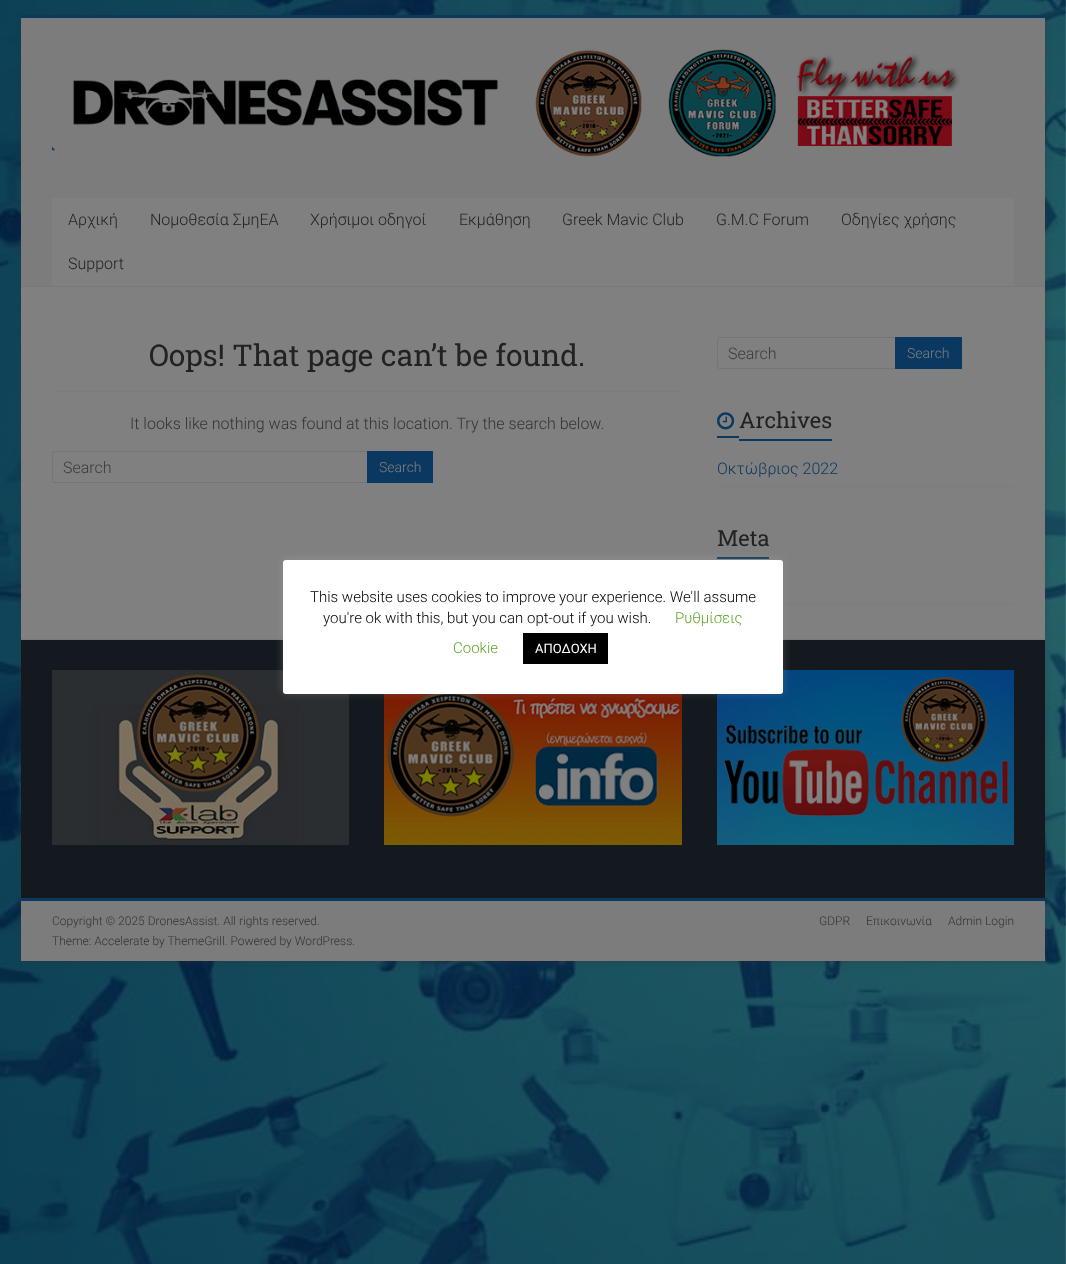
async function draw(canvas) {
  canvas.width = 1066
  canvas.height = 1264
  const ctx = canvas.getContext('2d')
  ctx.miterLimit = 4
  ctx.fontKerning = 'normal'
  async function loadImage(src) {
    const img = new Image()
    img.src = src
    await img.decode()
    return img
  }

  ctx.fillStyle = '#fff'
  ctx.fillRect(0, 0, 1066, 1264)
  ctx.drawImage(await loadImage('image0.png'), 0, 0, 1066, 1264)
  ctx.fillStyle = '#3232324d'
  ctx.filter = 'blur(3px)'
  ctx.beginPath()
  ctx.rect(21, 17, 1024, 946)
  ctx.fill()
  ctx.filter = 'none'
  ctx.fillStyle = '#808080'
  ctx.fillRect(21, 287, 1024, 352)
  ctx.fillStyle = '#0b3860'
  ctx.fillRect(21, 15, 1024, 3)
  ctx.fillStyle = '#7c7c7c'
  ctx.fillRect(21, 18, 1024, 268)
  ctx.fillStyle = '#797979'
  ctx.fillRect(21, 286, 1024, 1)
  ctx.drawImage(await loadImage('image1.png'), 52, 49, 909, 108)
  ctx.fillStyle = '#808080'
  ctx.fillRect(52, 198, 962, 88)
  ctx.font = '300 16px Roboto'
  ctx.fillStyle = '#222'
  ctx.fillText('Αρχική', 68, 225)
  ctx.fillText('Νομοθεσία ΣμηΕΑ', 150, 225)
  ctx.fillText('Χρήσιμοι οδηγοί', 310, 225)
  ctx.fillText('Εκμάθηση', 459, 225)
  ctx.fillText('Greek Mavic Club', 562, 225)
  ctx.fillText('G.M.C Forum', 716, 225)
  ctx.fillText('Oδηγίες χρήσης', 841, 225)
  ctx.fillText('Support', 68, 269)
  ctx.fillStyle = '#7c7c7c'
  ctx.fillRect(52, 391, 630, 1)
  ctx.font = '30px Roboto Slab'
  ctx.fillStyle = '#222'
  ctx.fillText('Oops! That page can’t be found.', 149, 366)
  ctx.font = '300 16px Roboto'
  ctx.fillStyle = '#333'
  ctx.fillText('It looks like nothing was found at this location. Try the search below.', 130, 429)
  ctx.fillStyle = '#757575'
  ctx.beginPath()
  ctx.moveTo(55, 451)
  ctx.lineTo(367, 451)
  ctx.lineTo(367, 483)
  ctx.lineTo(55, 483)
  ctx.bezierCurveTo(53, 483, 52, 482, 52, 480)
  ctx.lineTo(52, 454)
  ctx.bezierCurveTo(52, 452, 53, 451, 55, 451)
  ctx.closePath()
  ctx.moveTo(55, 452)
  ctx.lineTo(367, 452)
  ctx.lineTo(367, 482)
  ctx.lineTo(55, 482)
  ctx.bezierCurveTo(54, 482, 53, 481, 53, 480)
  ctx.lineTo(53, 454)
  ctx.bezierCurveTo(53, 453, 54, 452, 55, 452)
  ctx.closePath()
  ctx.fill('evenodd')
  ctx.fillStyle = '#3b3b3b'
  ctx.fillText('Search', 63, 473)
  ctx.fillStyle = '#0b3860'
  ctx.fillRect(367, 451, 66, 32)
  ctx.font = '300 14px Roboto'
  ctx.fillStyle = '#808080'
  ctx.fillText('Search', 379, 472)
  ctx.fillStyle = '#757575'
  ctx.beginPath()
  ctx.moveTo(720, 337)
  ctx.lineTo(895, 337)
  ctx.lineTo(895, 369)
  ctx.lineTo(720, 369)
  ctx.bezierCurveTo(718, 369, 717, 368, 717, 366)
  ctx.lineTo(717, 340)
  ctx.bezierCurveTo(717, 338, 718, 337, 720, 337)
  ctx.closePath()
  ctx.moveTo(720, 338)
  ctx.lineTo(895, 338)
  ctx.lineTo(895, 368)
  ctx.lineTo(720, 368)
  ctx.bezierCurveTo(719, 368, 718, 367, 718, 366)
  ctx.lineTo(718, 340)
  ctx.bezierCurveTo(718, 339, 719, 338, 720, 338)
  ctx.closePath()
  ctx.fill('evenodd')
  ctx.font = '300 16px Roboto'
  ctx.fillStyle = '#3b3b3b'
  ctx.fillText('Search', 728, 359)
  ctx.fillStyle = '#0b3860'
  ctx.fillRect(895, 337, 67, 32)
  ctx.font = '300 14px Roboto'
  ctx.fillStyle = '#808080'
  ctx.fillText('Search', 907, 358)
  ctx.drawImage(await loadImage('image2.png'), 717, 412, 18, 18)
  ctx.font = '22px Roboto Slab'
  ctx.fillStyle = '#222'
  ctx.fillText('Archives', 739, 428)
  ctx.fillStyle = '#0b3860'
  ctx.fillRect(717, 436, 22, 2)
  ctx.fillRect(739, 439, 93, 2)
  ctx.fillStyle = '#7c7c7c'
  ctx.fillRect(717, 486, 297, 1)
  ctx.font = '300 16px Roboto'
  ctx.fillStyle = '#0b3860'
  ctx.fillText('Οκτώβριος 2022', 717, 474)
  ctx.font = '22px Roboto Slab'
  ctx.fillStyle = '#222'
  ctx.fillText('Meta', 717, 546)
  ctx.fillStyle = '#0b3860'
  ctx.fillRect(717, 557, 52, 2)
  ctx.fillStyle = '#7c7c7c'
  ctx.fillRect(783, 603, 231, 1)
  ctx.fillStyle = '#14191f'
  ctx.fillRect(21, 640, 1024, 258)
  ctx.fillStyle = '#797979'
  ctx.fillRect(21, 639, 1024, 1)
  ctx.drawImage(await loadImage('image3.png'), 52, 670, 297, 175)
  ctx.drawImage(await loadImage('image4.png'), 384, 694, 298, 151)
  ctx.drawImage(await loadImage('image5.png'), 717, 670, 297, 175)
  ctx.fillStyle = '#7c7c7c'
  ctx.fillRect(21, 901, 1024, 60)
  ctx.fillStyle = '#0b3860'
  ctx.fillRect(21, 898, 1024, 3)
  ctx.font = '300 12px Roboto'
  ctx.fillStyle = '#333'
  ctx.fillText('Copyright © 2025 DronesAssist. All rights reserved.', 52, 925)
  ctx.fillText('Theme: Accelerate by ThemeGrill. Powered by WordPress.', 52, 945)
  ctx.fillText('GDPR', 819, 925)
  ctx.fillText('Επικοινωνία', 866, 925)
  ctx.fillText('Admin Login', 948, 925)
  ctx.fillStyle = '#acabab4d'
  ctx.filter = 'blur(5px)'
  ctx.beginPath()
  ctx.roundRect(283, 559, 500, 134, 3)
  ctx.fill()
  ctx.filter = 'none'
  ctx.fillStyle = '#fff'
  ctx.beginPath()
  ctx.roundRect(283, 560, 500, 134, 3)
  ctx.fill()
  ctx.font = '300 15px Roboto'
  ctx.fillStyle = '#000'
  ctx.fillText('This website uses cookies to improve your experience. We\'ll assume', 310, 602)
  ctx.fillText('you\'re ok with this, but you can opt-out if you wish.', 323, 623)
  ctx.fillStyle = '#62a329'
  ctx.fillText('Ρυθμίσεις', 675, 623)
  ctx.fillText('Cookie', 453, 653)
  ctx.fillStyle = '#000'
  ctx.fillRect(523, 633, 85, 31)
  ctx.font = '13px Roboto'
  ctx.fillStyle = '#fff'
  ctx.fillText('ΑΠΟΔΟΧΗ', 535, 653)
}

draw(document.querySelector('canvas'))
